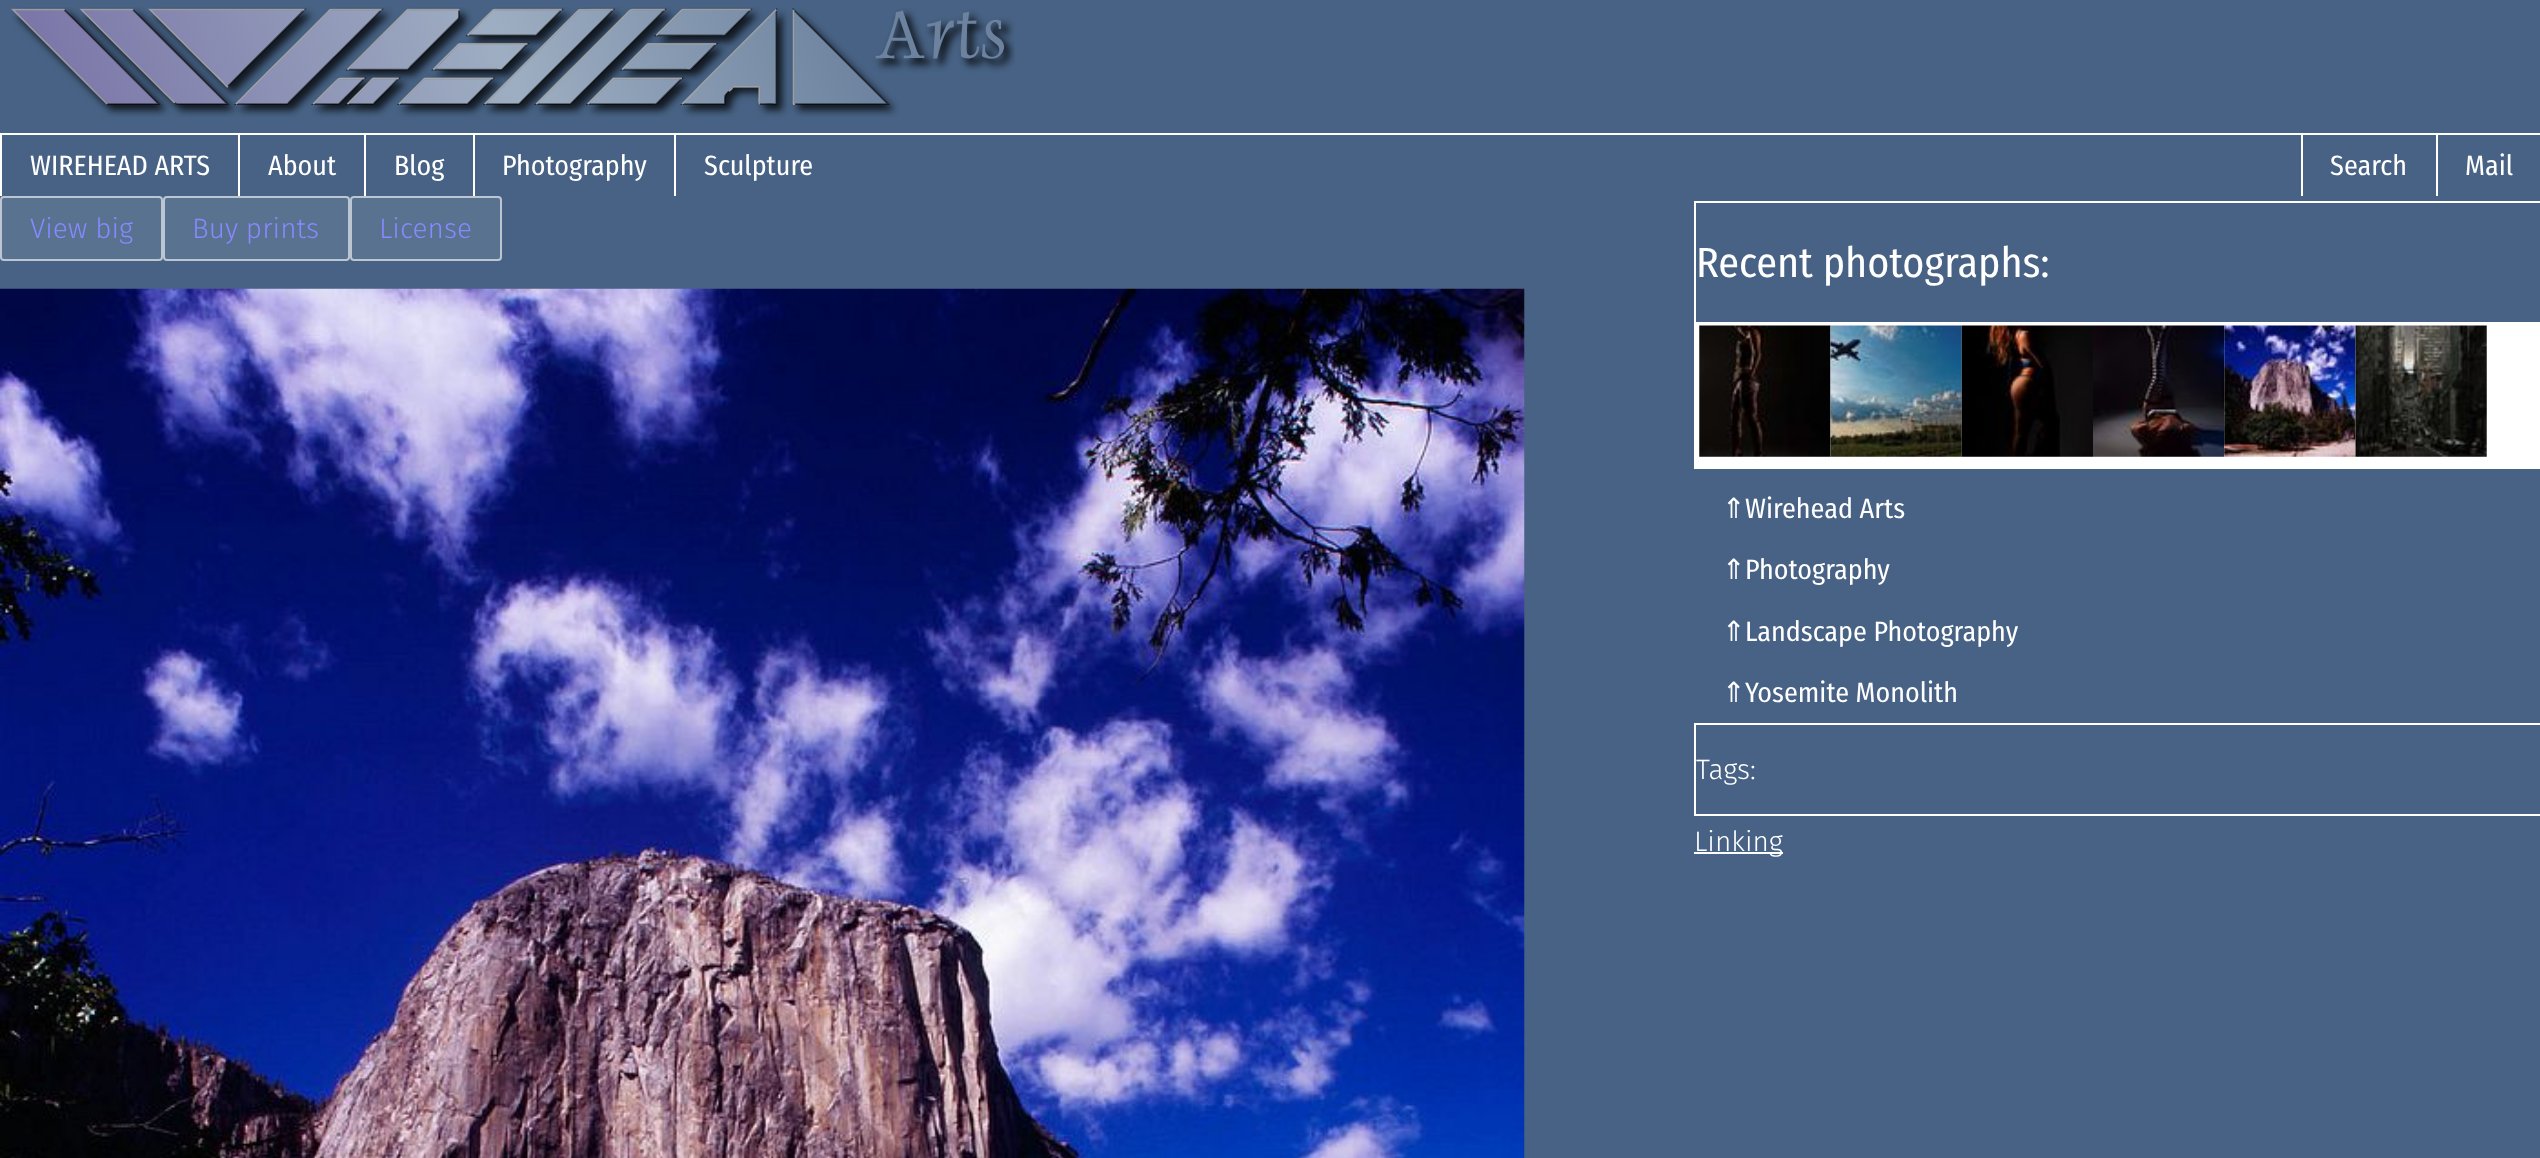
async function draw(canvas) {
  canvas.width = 2540
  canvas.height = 1158
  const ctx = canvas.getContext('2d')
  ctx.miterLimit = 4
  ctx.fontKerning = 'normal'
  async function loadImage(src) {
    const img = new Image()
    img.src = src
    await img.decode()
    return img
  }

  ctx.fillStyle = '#476284'
  ctx.fillRect(0, 0, 2540, 1158)
  ctx.drawImage(await loadImage('image0.png'), 11, 7, 1004, 110)
  ctx.fillStyle = '#fff'
  ctx.fillRect(0, 133, 2540, 2)
  ctx.fillRect(0, 135, 2, 61)
  ctx.font = '28px Fira Sans Condensed'
  ctx.fillText('WIREHEAD ARTS', 30, 175)
  ctx.fillRect(238, 135, 2, 61)
  ctx.fillText('About', 268, 175)
  ctx.fillRect(364, 135, 2, 61)
  ctx.fillText('Blog', 394, 175)
  ctx.fillRect(473, 135, 2, 61)
  ctx.fillText('Photography', 502, 175)
  ctx.fillRect(674, 135, 2, 61)
  ctx.fillText('Sculpture', 704, 175)
  ctx.fillRect(2301, 135, 2, 61)
  ctx.fillText('Search', 2330, 175)
  ctx.fillRect(2436, 135, 2, 61)
  ctx.fillText('Mail', 2465, 175)
  ctx.fillStyle = '#597290'
  ctx.beginPath()
  ctx.roundRect(0, 196, 163, 65, 4)
  ctx.fill()
  ctx.beginPath()
  ctx.roundRect(1, 197, 161, 63, 3)
  ctx.strokeStyle = '#ffffff99'
  ctx.lineWidth = 2
  ctx.stroke()
  ctx.font = '300 28px Fira Sans'
  ctx.fillStyle = '#88f'
  ctx.fillText('View big', 30, 238)
  ctx.fillStyle = '#597290'
  ctx.beginPath()
  ctx.roundRect(163, 196, 187, 65, 4)
  ctx.fill()
  ctx.beginPath()
  ctx.roundRect(164, 197, 185, 63, 3)
  ctx.stroke()
  ctx.fillStyle = '#88f'
  ctx.fillText('Buy prints', 192, 238)
  ctx.fillStyle = '#597290'
  ctx.beginPath()
  ctx.roundRect(350, 196, 152, 65, 4)
  ctx.fill()
  ctx.beginPath()
  ctx.roundRect(351, 197, 150, 63, 3)
  ctx.stroke()
  ctx.fillStyle = '#88f'
  ctx.fillText('License', 379, 238)
  ctx.drawImage(await loadImage('image1.png'), 0, 288, 1525, 870)
  ctx.fillStyle = '#fff'
  ctx.fillRect(1694, 201, 846, 2)
  ctx.fillRect(1694, 467, 846, 2)
  ctx.fillRect(1694, 201, 2, 268)
  ctx.font = '42px Fira Sans Condensed'
  ctx.fillText('Recent photographs:', 1696, 277)
  ctx.fillRect(1696, 322, 844, 145)
  ctx.drawImage(await loadImage('image2.png'), 1699, 325, 132, 132)
  ctx.drawImage(await loadImage('image3.png'), 1830, 325, 132, 132)
  ctx.drawImage(await loadImage('image4.png'), 1961, 325, 132, 132)
  ctx.drawImage(await loadImage('image5.png'), 2093, 325, 132, 132)
  ctx.drawImage(await loadImage('image6.png'), 2224, 325, 132, 132)
  ctx.drawImage(await loadImage('image7.png'), 2355, 325, 132, 132)
  ctx.font = '28px DejaVu Sans'
  ctx.fillText('⇑', 1722, 518)
  ctx.font = '28px Fira Sans Condensed'
  ctx.fillText('Wirehead Arts', 1745, 518)
  ctx.font = '28px DejaVu Sans'
  ctx.fillText('⇑', 1722, 579)
  ctx.font = '28px Fira Sans Condensed'
  ctx.fillText('Photography', 1745, 579)
  ctx.font = '28px DejaVu Sans'
  ctx.fillText('⇑', 1722, 641)
  ctx.font = '28px Fira Sans Condensed'
  ctx.fillText('Landscape Photography', 1745, 641)
  ctx.font = '28px DejaVu Sans'
  ctx.fillText('⇑', 1722, 702)
  ctx.font = '28px Fira Sans Condensed'
  ctx.fillText('Yosemite Monolith', 1745, 702)
  ctx.fillRect(1694, 723, 846, 2)
  ctx.fillRect(1694, 814, 846, 2)
  ctx.fillRect(1694, 723, 2, 93)
  ctx.font = '300 28px Fira Sans'
  ctx.fillText('Tags:', 1696, 779)
  ctx.fillRect(1694, 852, 89, 2)
  ctx.fillText('Linking', 1694, 851)
}

draw(document.querySelector('canvas'))
